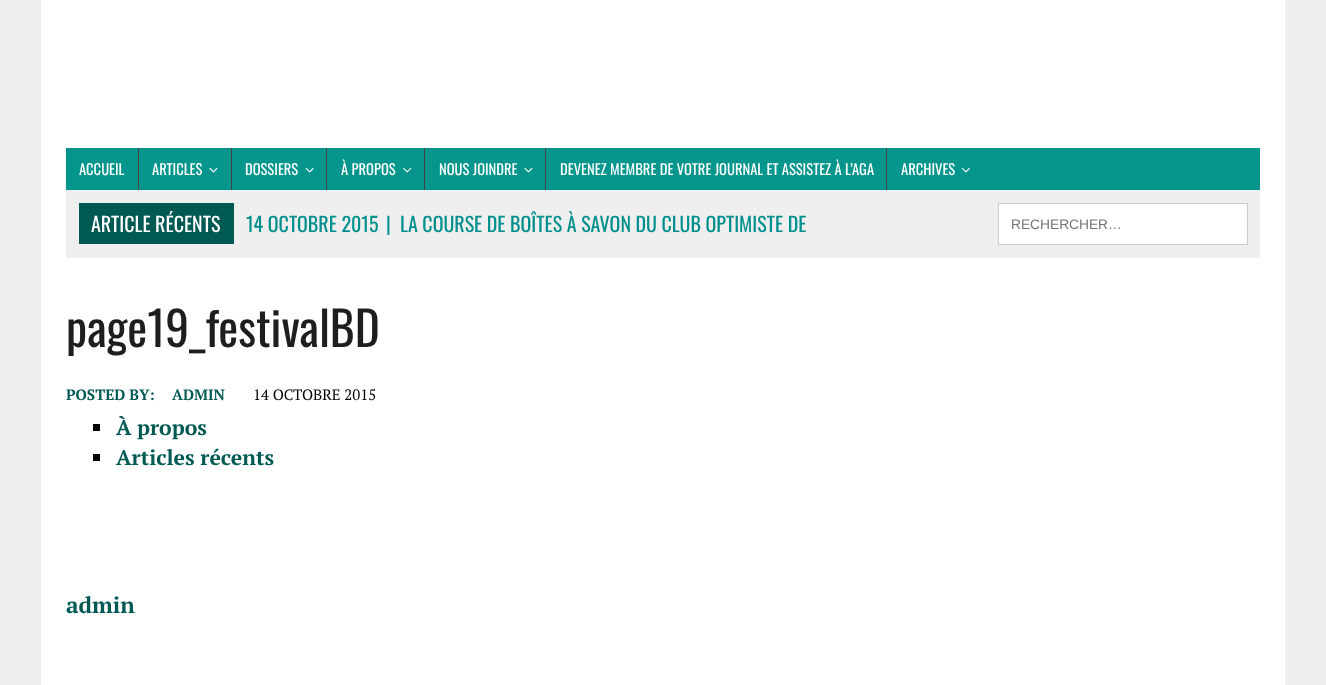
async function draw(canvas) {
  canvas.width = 1326
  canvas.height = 685
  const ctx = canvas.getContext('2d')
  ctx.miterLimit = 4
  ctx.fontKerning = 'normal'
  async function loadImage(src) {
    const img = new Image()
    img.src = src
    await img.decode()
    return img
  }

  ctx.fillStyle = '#efefef'
  ctx.fillRect(0, 0, 1326, 685)
  ctx.fillStyle = '#fff'
  ctx.fillRect(41, 0, 1244, 685)
  ctx.fillStyle = '#04958c'
  ctx.fillRect(66, 148, 1194, 42)
  ctx.font = '14.6px Oswald'
  ctx.fillStyle = '#fff'
  ctx.fillText('ACCUEIL', 79, 175)
  ctx.fillStyle = '#424242'
  ctx.fillRect(138, 148, 1, 42)
  ctx.fillStyle = '#fff'
  ctx.fillText('ARTICLES', 152, 175)
  ctx.drawImage(await loadImage('image0.png'), 209, 167, 9, 6)
  ctx.fillStyle = '#424242'
  ctx.fillRect(231, 148, 1, 42)
  ctx.fillStyle = '#fff'
  ctx.fillText('DOSSIERS', 245, 175)
  ctx.drawImage(await loadImage('image1.png'), 305, 167, 9, 6)
  ctx.fillStyle = '#424242'
  ctx.fillRect(326, 148, 1, 42)
  ctx.fillStyle = '#fff'
  ctx.fillText('À PROPOS', 341, 175)
  ctx.drawImage(await loadImage('image2.png'), 403, 167, 9, 6)
  ctx.fillStyle = '#424242'
  ctx.fillRect(424, 148, 1, 42)
  ctx.fillStyle = '#fff'
  ctx.fillText('NOUS JOINDRE', 439, 175)
  ctx.drawImage(await loadImage('image0.png'), 524, 167, 9, 6)
  ctx.fillStyle = '#424242'
  ctx.fillRect(545, 148, 1, 42)
  ctx.fillStyle = '#fff'
  ctx.fillText('DEVENEZ MEMBRE DE VOTRE JOURNAL ET ASSISTEZ À L’AGA', 560, 175)
  ctx.fillStyle = '#424242'
  ctx.fillRect(886, 148, 1, 42)
  ctx.fillStyle = '#fff'
  ctx.fillText('ARCHIVES', 901, 175)
  ctx.drawImage(await loadImage('image3.png'), 961, 167, 9, 6)
  ctx.fillStyle = '#efefef'
  ctx.fillRect(66, 190, 1194, 68)
  ctx.fillStyle = '#005953'
  ctx.fillRect(79, 203, 155, 41)
  ctx.font = '20px Oswald'
  ctx.fillStyle = '#fff'
  ctx.fillText('ARTICLE RÉCENTS', 91, 232)
  ctx.fillStyle = '#01908d'
  ctx.fillText('14 OCTOBRE 2015', 246, 232)
  ctx.fillText('|', 386, 232)
  ctx.fillText('LA COURSE DE BOÎTES À SAVON DU CLUB OPTIMISTE DE', 400, 232)
  ctx.fillStyle = '#fff'
  ctx.beginPath()
  ctx.rect(998.5, 203.5, 249, 41)
  ctx.fill()
  ctx.strokeStyle = '#cdcdcd'
  ctx.stroke()
  ctx.font = '13.75px Liberation Sans'
  ctx.fillStyle = '#757575'
  ctx.fillText('RECHERCHER…', 1011, 229)
  ctx.font = '47.5px Oswald'
  ctx.fillStyle = '#1f1e1e'
  ctx.fillText('page19_festivalBD', 66, 347)
  ctx.font = 'bold 15px PT Serif'
  ctx.fillStyle = '#005953'
  ctx.fillText('POSTED BY:', 66, 400)
  ctx.fillText('ADMIN', 172, 400)
  ctx.font = '15px PT Serif'
  ctx.fillStyle = '#000'
  ctx.fillText('14 OCTOBRE 2015', 253, 400)
  ctx.fillRect(93, 424, 7, 7)
  ctx.font = 'bold 21.25px PT Serif'
  ctx.fillStyle = '#005953'
  ctx.fillText('À propos', 116, 435)
  ctx.fillStyle = '#000'
  ctx.fillRect(93, 454, 7, 7)
  ctx.fillStyle = '#005953'
  ctx.fillText('Articles récents', 116, 465)
  ctx.font = 'bold 22.5px PT Serif'
  ctx.fillText('admin', 66, 613)
}

draw(document.querySelector('canvas'))
